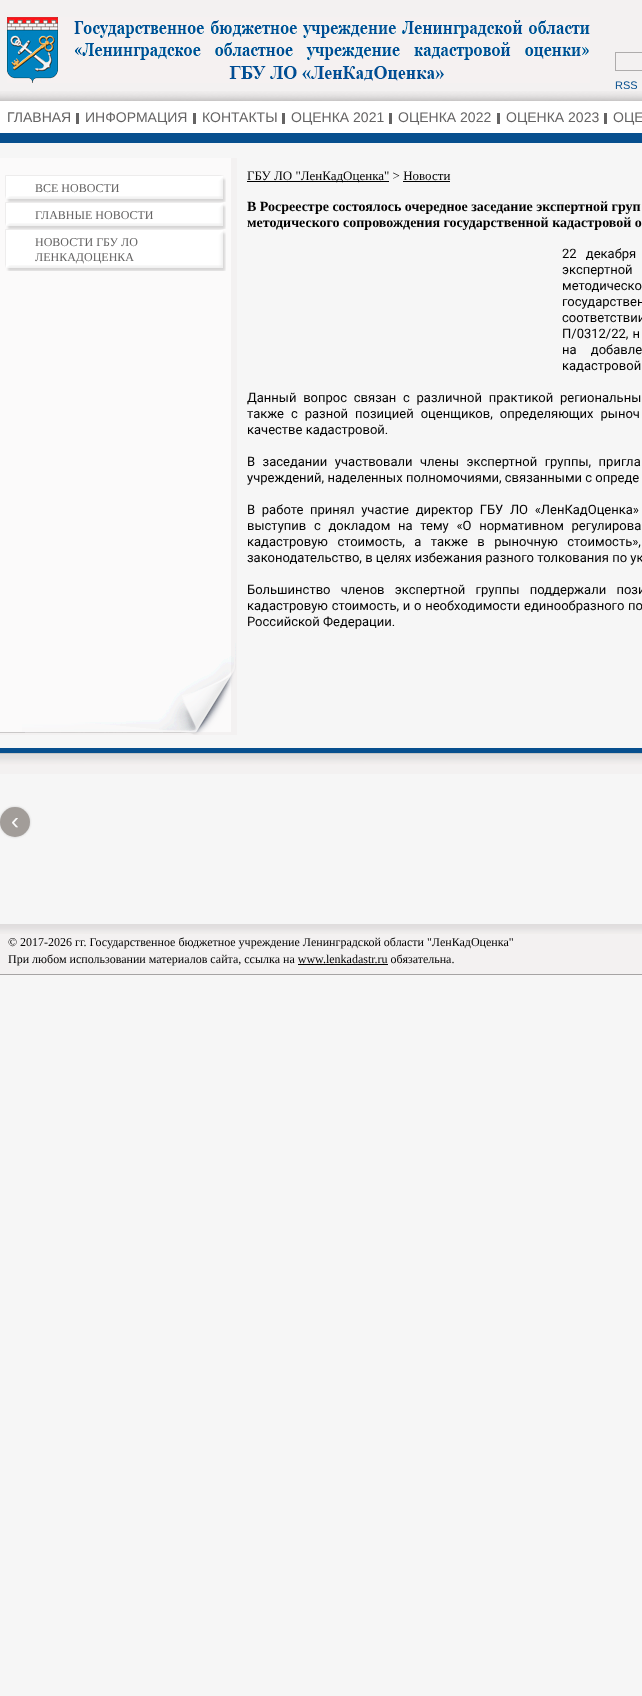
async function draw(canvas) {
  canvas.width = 642
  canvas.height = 1696
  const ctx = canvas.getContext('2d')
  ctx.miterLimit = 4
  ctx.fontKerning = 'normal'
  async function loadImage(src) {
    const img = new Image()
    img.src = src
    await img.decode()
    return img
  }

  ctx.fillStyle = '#f6f6f6'
  ctx.fillRect(0, 0, 642, 1696)
  ctx.fillStyle = '#f3f1f1'
  ctx.fillRect(0, 0, 642, 91)
  ctx.drawImage(await loadImage('image0.png'), 0, 91, 642, 10)
  ctx.drawImage(await loadImage('image1.png'), 7, 17, 583, 66)
  ctx.strokeStyle = '#aeacac'
  ctx.strokeRect(615.5, 52.5, 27, 18)
  ctx.font = '11px Liberation Sans'
  ctx.fillStyle = '#074f8e'
  ctx.fillText('RSS', 615, 89)
  ctx.fillStyle = '#fff'
  ctx.fillRect(0, 101, 642, 32)
  ctx.fillStyle = '#074f8e'
  ctx.fillRect(0, 133, 642, 10)
  ctx.fillStyle = '#646363'
  ctx.fillRect(76, 113, 3, 11)
  ctx.font = '14px Liberation Sans'
  ctx.fillText('ГЛАВНАЯ', 7, 122)
  ctx.fillRect(193, 113, 3, 11)
  ctx.fillText('ИНФОРМАЦИЯ', 85, 122)
  ctx.fillRect(282, 113, 3, 11)
  ctx.fillText('КОНТАКТЫ', 202, 122)
  ctx.fillRect(389, 113, 3, 11)
  ctx.fillText('ОЦЕНКА 2021', 291, 122)
  ctx.fillRect(497, 113, 3, 11)
  ctx.fillText('ОЦЕНКА 2022', 398, 122)
  ctx.fillRect(604, 113, 3, 11)
  ctx.fillText('ОЦЕНКА 2023', 506, 122)
  ctx.fillText('ОЦЕ', 613, 122)
  ctx.drawImage(await loadImage('image2.png'), 0, 158, 237, 577)
  ctx.drawImage(await loadImage('image3.png'), 0, 643, 236, 92)
  ctx.drawImage(await loadImage('image4.png'), 5, 175, 221, 21)
  ctx.drawImage(await loadImage('image5.png'), 5, 196, 221, 6)
  ctx.font = '12px Liberation Serif'
  ctx.fillText('ВСЕ НОВОСТИ', 35, 192)
  ctx.drawImage(await loadImage('image4.png'), 5, 202, 221, 21)
  ctx.drawImage(await loadImage('image5.png'), 5, 223, 221, 6)
  ctx.fillText('ГЛАВНЫЕ НОВОСТИ', 35, 219)
  ctx.drawImage(await loadImage('image6.png'), 5, 229, 221, 36)
  ctx.drawImage(await loadImage('image5.png'), 5, 265, 221, 6)
  ctx.fillText('НОВОСТИ ГБУ ЛО', 35, 246)
  ctx.fillText('ЛЕНКАДОЦЕНКА', 35, 261)
  ctx.fillStyle = '#000'
  ctx.fillRect(247, 181, 142, 1)
  ctx.font = '13px Liberation Serif'
  ctx.fillText('ГБУ ЛО "ЛенКадОценка" > Новости', 247, 180)
  ctx.fillRect(403, 181, 47, 1)
  ctx.font = 'bold 14px Liberation Serif'
  ctx.fillText('В Росреестре состоялось очередное заседание экспертной груп', 247, 211)
  ctx.fillText('методического сопровождения государственной кадастровой о', 247, 227)
  ctx.wordSpacing = '6px'
  ctx.font = '13px Roboto'
  ctx.fillText('22 декабря', 562, 258)
  ctx.wordSpacing = '18px'
  ctx.fillText('экспертной', 562, 274)
  ctx.wordSpacing = '181px'
  ctx.fillText('методическо', 562, 290)
  ctx.wordSpacing = '0px'
  ctx.fillText('государствен', 562, 306)
  ctx.wordSpacing = '7px'
  ctx.fillText('соответствии', 562, 322)
  ctx.wordSpacing = '1px'
  ctx.fillText('П/0312/22, н', 562, 338)
  ctx.wordSpacing = '11px'
  ctx.fillText('на добавле', 562, 354)
  ctx.wordSpacing = '0px'
  ctx.fillText('кадастровой', 562, 370)
  ctx.wordSpacing = '3.5px'
  ctx.fillText('Данный вопрос связан с различной практикой региональны', 247, 402)
  ctx.wordSpacing = '3.75px'
  ctx.fillText('также с разной позицией оценщиков, определяющих рыноч', 247, 418)
  ctx.wordSpacing = '0px'
  ctx.fillText('качестве кадастровой.', 247, 434)
  ctx.wordSpacing = '4.25px'
  ctx.fillText('В заседании участвовали члены экспертной группы, пригла', 247, 466)
  ctx.wordSpacing = '0px'
  ctx.fillText('учреждений, наделенных полномочиями, связанными с опреде', 247, 482)
  ctx.wordSpacing = '3.5px'
  ctx.fillText('В работе принял участие директор ГБУ ЛО «ЛенКадОценка»', 247, 514)
  ctx.wordSpacing = '4.5px'
  ctx.fillText('выступив с докладом на тему «О нормативном регулирова', 247, 530)
  ctx.wordSpacing = '6.25px'
  ctx.fillText('кадастровую стоимость, а также в рыночную стоимость»,', 247, 546)
  ctx.wordSpacing = '0px'
  ctx.fillText('законодательство, в целях избежания разного толкования по ук', 247, 562)
  ctx.wordSpacing = '7px'
  ctx.fillText('Большинство членов экспертной группы поддержали пози', 247, 594)
  ctx.wordSpacing = '0.5px'
  ctx.fillText('кадастровую стоимость, и о необходимости единообразного по', 247, 610)
  ctx.wordSpacing = '0px'
  ctx.fillText('Российской Федерации.', 247, 626)
  ctx.drawImage(await loadImage('image7.png'), 0, 748, 642, 26)
  ctx.fillStyle = '#c8c8c8'
  ctx.filter = 'blur(1px)'
  ctx.beginPath()
  ctx.roundRect(0, 807, 30, 30, 15)
  ctx.fill()
  ctx.filter = 'none'
  ctx.fillStyle = '#a29d99'
  ctx.beginPath()
  ctx.arc(15, 822, 15, 0, 2 * Math.PI)
  ctx.fill()
  ctx.font = '24px Liberation Sans'
  ctx.fillStyle = '#fbfbfb'
  ctx.fillText('‹', 11, 829)
  ctx.fillStyle = '#f3f1f1'
  ctx.fillRect(0, 934, 642, 40)
  ctx.drawImage(await loadImage('image8.png'), 0, 924, 642, 10)
  ctx.fillStyle = '#a6a4a4'
  ctx.fillRect(0, 974, 642, 1)
  ctx.font = '12px Liberation Serif'
  ctx.fillStyle = '#000'
  ctx.fillText('© 2017-2026 гг. Государственное бюджетное учреждение Ленинградской области "ЛенКадОценка"', 8, 946)
  ctx.fillText('При любом использовании материалов сайта, ссылка на www.lenkadastr.ru обязательна.', 8, 963)
  ctx.fillRect(298, 964, 90, 1)
}

draw(document.querySelector('canvas'))
